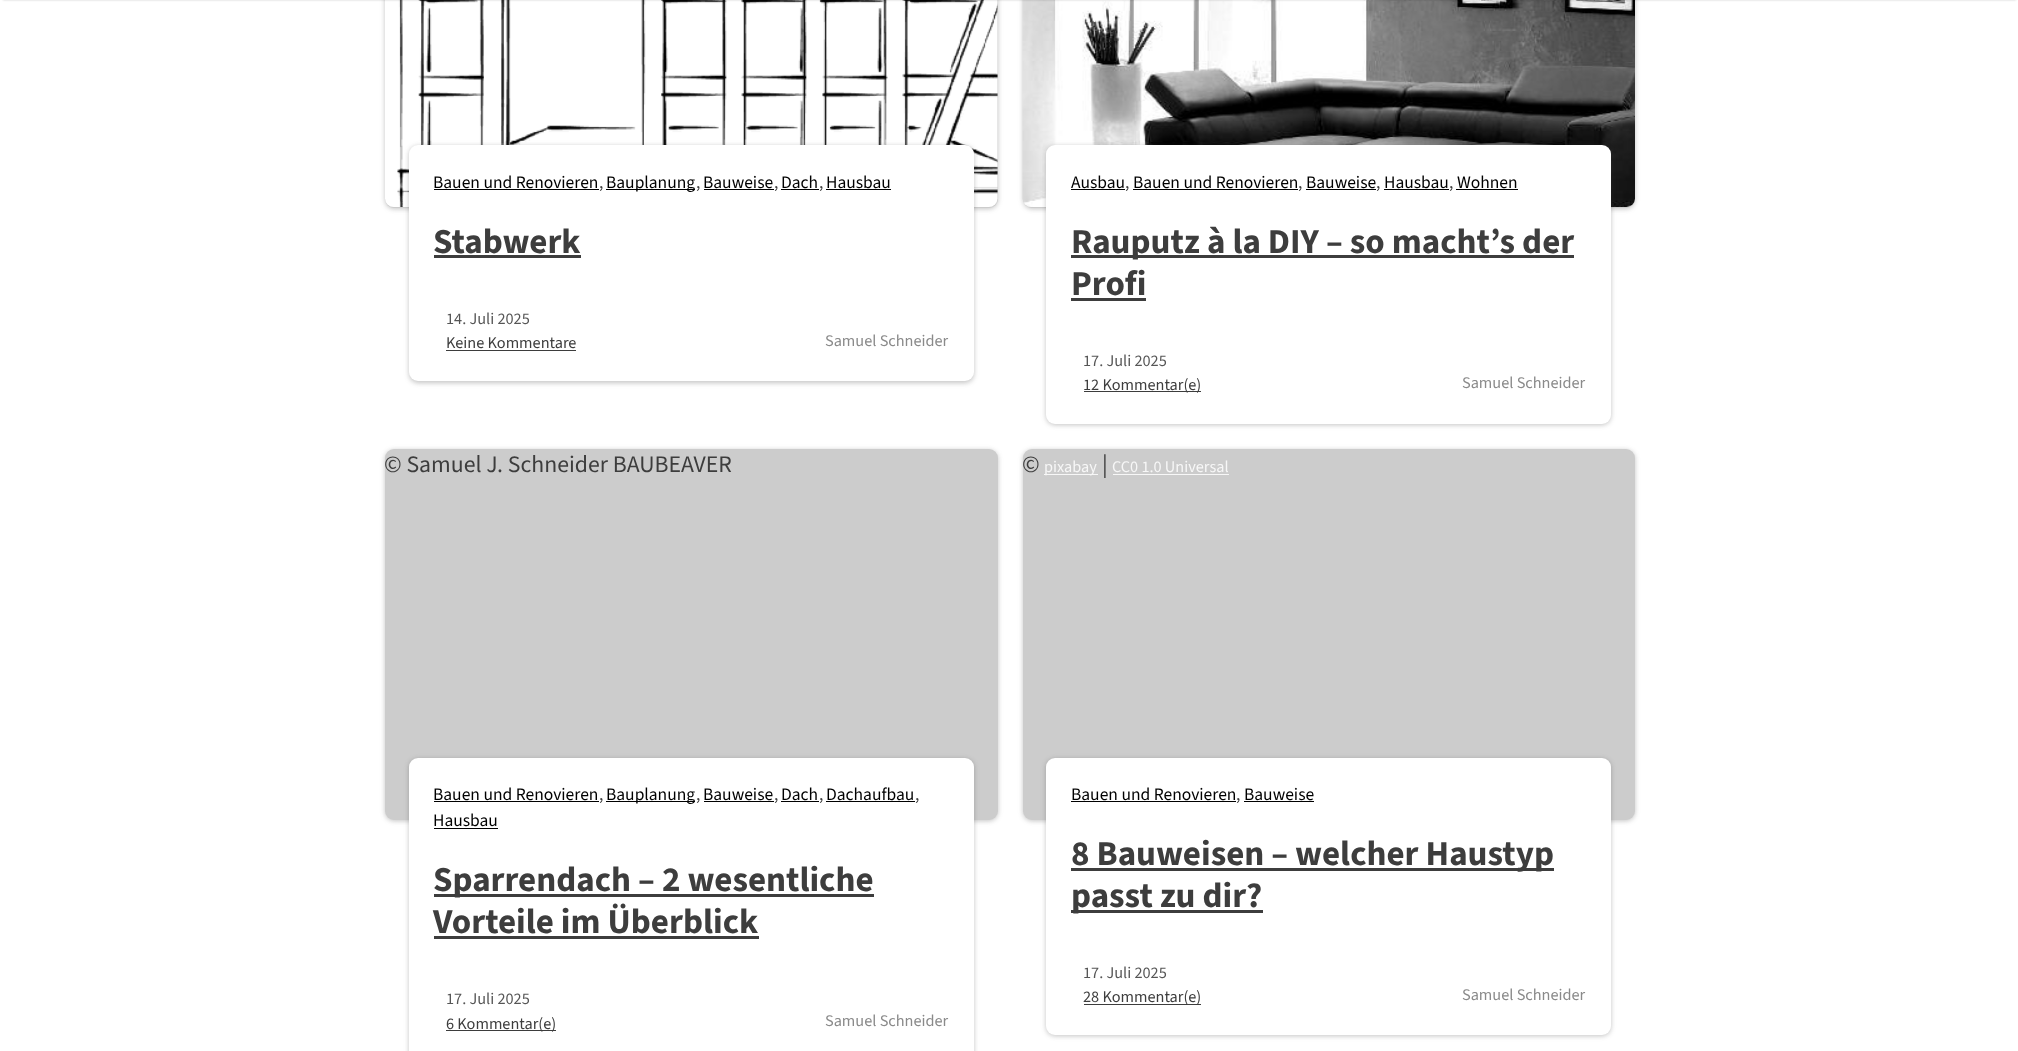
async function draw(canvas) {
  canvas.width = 2018
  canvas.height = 1051
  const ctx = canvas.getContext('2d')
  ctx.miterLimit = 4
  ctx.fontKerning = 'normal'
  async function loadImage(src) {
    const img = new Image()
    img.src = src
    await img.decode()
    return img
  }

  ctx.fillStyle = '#fff'
  ctx.fillRect(0, 0, 2018, 1051)
  ctx.fillStyle = '#3d3d3d4d'
  ctx.filter = 'blur(2.5px)'
  ctx.beginPath()
  ctx.roundRect(385, -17, 613, 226, 9)
  ctx.fill()
  ctx.filter = 'none'
  ctx.fillStyle = '#ccc'
  ctx.beginPath()
  ctx.roundRect(385, -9, 613, 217, 9)
  ctx.fill()
  ctx.drawImage(await loadImage('image0.png'), 385, 0, 613, 207)
  ctx.fillStyle = '#3d3d3d4d'
  ctx.filter = 'blur(2.5px)'
  ctx.beginPath()
  ctx.roundRect(1023, -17, 612, 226, 9)
  ctx.fill()
  ctx.filter = 'none'
  ctx.fillStyle = '#ccc'
  ctx.beginPath()
  ctx.roundRect(1023, -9, 612, 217, 9)
  ctx.fill()
  ctx.drawImage(await loadImage('image1.png'), 1022, 0, 613, 207)
  ctx.fillStyle = '#00000033'
  ctx.filter = 'blur(1px)'
  ctx.beginPath()
  ctx.rect(3, -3, 2013, 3)
  ctx.fill()
  ctx.filter = 'none'
  ctx.fillStyle = '#3d3d3d4d'
  ctx.filter = 'blur(2.5px)'
  ctx.beginPath()
  ctx.roundRect(409, 146, 565, 237, 9)
  ctx.fill()
  ctx.filter = 'none'
  ctx.fillStyle = '#fff'
  ctx.beginPath()
  ctx.roundRect(409, 145, 565, 236, 9)
  ctx.fill()
  ctx.font = '17.5px "Source Sans 3"'
  ctx.fillStyle = '#000'
  ctx.fillText('Bauen und Renovieren', 433, 188)
  ctx.fillRect(434, 189, 165, 1)
  ctx.fillStyle = '#3d3d3d'
  ctx.fillText(',', 599, 188)
  ctx.fillStyle = '#000'
  ctx.fillRect(606, 189, 89, 1)
  ctx.fillText('Bauplanung', 606, 188)
  ctx.fillStyle = '#3d3d3d'
  ctx.fillText(',', 696, 188)
  ctx.fillStyle = '#000'
  ctx.fillText('Bauweise', 703, 188)
  ctx.fillRect(704, 189, 70, 1)
  ctx.fillStyle = '#3d3d3d'
  ctx.fillText(',', 774, 188)
  ctx.fillStyle = '#000'
  ctx.fillText('Dach', 781, 188)
  ctx.fillRect(781, 189, 38, 1)
  ctx.fillStyle = '#3d3d3d'
  ctx.fillText(',', 819, 188)
  ctx.fillStyle = '#000'
  ctx.fillText('Hausbau', 826, 188)
  ctx.fillRect(826, 189, 65, 1)
  ctx.font = 'bold 35px "Source Sans 3"'
  ctx.fillStyle = '#3d3d3d'
  ctx.fillText('Stabwerk', 433, 253)
  ctx.fillRect(434, 255, 147, 3)
  ctx.font = '16.25px "Source Sans 3"'
  ctx.fillStyle = '#565656'
  ctx.fillText('14. Juli 2025', 446, 324)
  ctx.fillStyle = '#3d3d3d'
  ctx.fillText('Keine Kommentare', 446, 348)
  ctx.fillRect(446, 350, 130, 1)
  ctx.fillStyle = '#8a8a8a'
  ctx.fillText('Samuel Schneider', 825, 346)
  ctx.fillStyle = '#3d3d3d4d'
  ctx.filter = 'blur(2.5px)'
  ctx.beginPath()
  ctx.roundRect(1046, 146, 565, 279, 9)
  ctx.fill()
  ctx.filter = 'none'
  ctx.fillStyle = '#fff'
  ctx.beginPath()
  ctx.roundRect(1046, 145, 565, 279, 9)
  ctx.fill()
  ctx.font = '17.5px "Source Sans 3"'
  ctx.fillStyle = '#000'
  ctx.fillText('Ausbau', 1071, 188)
  ctx.fillRect(1071, 189, 54, 1)
  ctx.fillStyle = '#3d3d3d'
  ctx.fillText(',', 1125, 188)
  ctx.fillStyle = '#000'
  ctx.fillText('Bauen und Renovieren', 1133, 188)
  ctx.fillRect(1133, 189, 165, 1)
  ctx.fillStyle = '#3d3d3d'
  ctx.fillText(',', 1298, 188)
  ctx.fillStyle = '#000'
  ctx.fillText('Bauweise', 1306, 188)
  ctx.fillRect(1306, 189, 70, 1)
  ctx.fillStyle = '#3d3d3d'
  ctx.fillText(',', 1376, 188)
  ctx.fillStyle = '#000'
  ctx.fillText('Hausbau', 1384, 188)
  ctx.fillRect(1384, 189, 65, 1)
  ctx.fillStyle = '#3d3d3d'
  ctx.fillText(',', 1449, 188)
  ctx.fillStyle = '#000'
  ctx.fillText('Wohnen', 1457, 188)
  ctx.fillRect(1456, 189, 62, 1)
  ctx.fillStyle = '#3d3d3d'
  ctx.fillRect(1071, 255, 503, 3)
  ctx.font = 'bold 35px "Source Sans 3"'
  ctx.fillText('Rauputz à la DIY – so macht’s der', 1071, 253)
  ctx.fillText('Profi', 1071, 295)
  ctx.fillRect(1071, 298, 75, 3)
  ctx.font = '16.25px "Source Sans 3"'
  ctx.fillStyle = '#565656'
  ctx.fillText('17. Juli 2025', 1083, 366)
  ctx.fillStyle = '#3d3d3d'
  ctx.fillRect(1084, 391, 117, 1)
  ctx.fillText('12 Kommentar(e)', 1083, 390)
  ctx.fillStyle = '#8a8a8a'
  ctx.fillText('Samuel Schneider', 1462, 388)
  ctx.fillStyle = '#3d3d3d4d'
  ctx.filter = 'blur(2.5px)'
  ctx.beginPath()
  ctx.roundRect(385, 450, 613, 371, 9)
  ctx.fill()
  ctx.filter = 'none'
  ctx.fillStyle = '#ccc'
  ctx.beginPath()
  ctx.roundRect(385, 449, 613, 371, 9)
  ctx.fill()
  ctx.font = '23.75px "Source Sans 3"'
  ctx.fillStyle = '#3d3d3d'
  ctx.fillText('© Samuel J. Schneider BAUBEAVER', 384, 472)
  ctx.fillStyle = '#3d3d3d4d'
  ctx.filter = 'blur(2.5px)'
  ctx.beginPath()
  ctx.roundRect(409, 759, 565, 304, 9)
  ctx.fill()
  ctx.filter = 'none'
  ctx.fillStyle = '#fff'
  ctx.beginPath()
  ctx.roundRect(409, 758, 565, 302, 9)
  ctx.fill()
  ctx.font = '17.5px "Source Sans 3"'
  ctx.fillStyle = '#000'
  ctx.fillText('Bauen und Renovieren', 433, 800)
  ctx.fillRect(434, 801, 165, 1)
  ctx.fillStyle = '#3d3d3d'
  ctx.fillText(',', 599, 800)
  ctx.fillStyle = '#000'
  ctx.fillRect(606, 801, 89, 1)
  ctx.fillText('Bauplanung', 606, 800)
  ctx.fillStyle = '#3d3d3d'
  ctx.fillText(',', 696, 800)
  ctx.fillStyle = '#000'
  ctx.fillText('Bauweise', 703, 800)
  ctx.fillRect(704, 801, 70, 1)
  ctx.fillStyle = '#3d3d3d'
  ctx.fillText(',', 774, 800)
  ctx.fillStyle = '#000'
  ctx.fillText('Dach', 781, 800)
  ctx.fillRect(781, 801, 38, 1)
  ctx.fillStyle = '#3d3d3d'
  ctx.fillText(',', 819, 800)
  ctx.fillStyle = '#000'
  ctx.fillText('Dachaufbau', 826, 800)
  ctx.fillRect(826, 801, 89, 1)
  ctx.fillStyle = '#3d3d3d'
  ctx.fillText(',', 915, 800)
  ctx.fillStyle = '#000'
  ctx.fillText('Hausbau', 433, 826)
  ctx.fillRect(434, 828, 64, 1)
  ctx.fillStyle = '#3d3d3d'
  ctx.fillRect(434, 894, 440, 3)
  ctx.font = 'bold 35px "Source Sans 3"'
  ctx.fillText('Sparrendach – 2 wesentliche', 433, 891)
  ctx.fillText('Vorteile im Überblick', 433, 933)
  ctx.fillRect(434, 936, 325, 3)
  ctx.font = '16.25px "Source Sans 3"'
  ctx.fillStyle = '#565656'
  ctx.fillText('17. Juli 2025', 446, 1004)
  ctx.fillStyle = '#3d3d3d'
  ctx.fillRect(446, 1030, 110, 1)
  ctx.fillText('6 Kommentar(e)', 446, 1029)
  ctx.fillStyle = '#8a8a8a'
  ctx.fillText('Samuel Schneider', 825, 1026)
  ctx.fillStyle = '#3d3d3d4d'
  ctx.filter = 'blur(2.5px)'
  ctx.beginPath()
  ctx.roundRect(1023, 450, 612, 371, 9)
  ctx.fill()
  ctx.filter = 'none'
  ctx.fillStyle = '#ccc'
  ctx.beginPath()
  ctx.roundRect(1023, 449, 612, 371, 9)
  ctx.fill()
  ctx.font = '23.75px "Source Sans 3"'
  ctx.fillStyle = '#3d3d3d'
  ctx.fillText('©', 1022, 472)
  ctx.fillStyle = '#f7f7f7'
  ctx.fillRect(1044, 474, 54, 1)
  ctx.font = '16.25px "Source Sans 3"'
  ctx.fillText('pixabay', 1044, 472)
  ctx.font = '23.75px "Source Sans 3"'
  ctx.fillStyle = '#3d3d3d'
  ctx.fillText('|', 1102, 472)
  ctx.font = '16.25px "Source Sans 3"'
  ctx.fillStyle = '#f7f7f7'
  ctx.fillText('CC0 1.0 Universal', 1112, 472)
  ctx.fillRect(1113, 474, 116, 1)
  ctx.fillStyle = '#3d3d3d4d'
  ctx.filter = 'blur(2.5px)'
  ctx.beginPath()
  ctx.roundRect(1046, 759, 565, 277, 9)
  ctx.fill()
  ctx.filter = 'none'
  ctx.fillStyle = '#fff'
  ctx.beginPath()
  ctx.roundRect(1046, 758, 565, 277, 9)
  ctx.fill()
  ctx.font = '17.5px "Source Sans 3"'
  ctx.fillStyle = '#000'
  ctx.fillText('Bauen und Renovieren', 1071, 800)
  ctx.fillRect(1071, 801, 165, 1)
  ctx.fillStyle = '#3d3d3d'
  ctx.fillText(',', 1236, 800)
  ctx.fillStyle = '#000'
  ctx.fillText('Bauweise', 1244, 800)
  ctx.fillRect(1244, 801, 70, 1)
  ctx.fillStyle = '#3d3d3d'
  ctx.fillRect(1071, 868, 483, 3)
  ctx.font = 'bold 35px "Source Sans 3"'
  ctx.fillText('8 Bauweisen – welcher Haustyp', 1071, 865)
  ctx.fillRect(1071, 910, 192, 3)
  ctx.fillText('passt zu dir?', 1071, 907)
  ctx.font = '16.25px "Source Sans 3"'
  ctx.fillStyle = '#565656'
  ctx.fillText('17. Juli 2025', 1083, 978)
  ctx.fillStyle = '#3d3d3d'
  ctx.fillRect(1084, 1004, 117, 1)
  ctx.fillText('28 Kommentar(e)', 1083, 1002)
  ctx.fillStyle = '#8a8a8a'
  ctx.fillText('Samuel Schneider', 1462, 1000)
}

draw(document.querySelector('canvas'))
